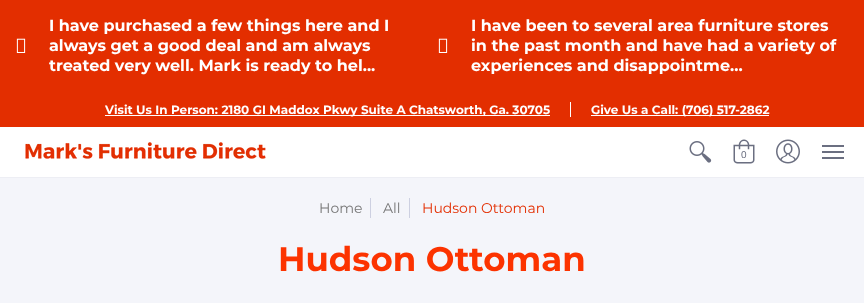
async function draw(canvas) {
  canvas.width = 864
  canvas.height = 303
  const ctx = canvas.getContext('2d')
  ctx.miterLimit = 4
  ctx.fontKerning = 'normal'
  async function loadImage(src) {
    const img = new Image()
    img.src = src
    await img.decode()
    return img
  }

  ctx.fillStyle = '#fff'
  ctx.fillRect(0, 0, 864, 303)
  ctx.fillStyle = '#e32e00'
  ctx.fillRect(0, 0, 864, 127)
  ctx.drawImage(await loadImage('image0.png'), 16, 38, 10, 15)
  ctx.font = 'bold 16px Montserrat'
  ctx.fillStyle = '#fff'
  ctx.fillText('I have purchased a few things here and I', 49, 31)
  ctx.fillText('always get a good deal and am always', 49, 51)
  ctx.fillText('treated very well. Mark is ready to hel...', 49, 71)
  ctx.drawImage(await loadImage('image0.png'), 438, 38, 10, 15)
  ctx.fillText('I have been to several area furniture stores', 471, 31)
  ctx.fillText('in the past month and have had a variety of', 471, 51)
  ctx.fillText('experiences and disappointme...', 471, 71)
  ctx.fillRect(105, 115, 445, 1)
  ctx.font = 'bold 12px Montserrat'
  ctx.fillText('Visit Us In Person: 2180 GI Maddox Pkwy Suite A Chatsworth, Ga. 30705', 105, 114)
  ctx.fillRect(570, 102, 1, 15)
  ctx.fillRect(591, 115, 178, 1)
  ctx.fillText('Give Us a Call: (706) 517-2862', 591, 114)
  ctx.fillStyle = '#edeef4'
  ctx.fillRect(0, 177, 864, 1)
  ctx.drawImage(await loadImage('image1.png'), 25, 142, 241, 17)
  ctx.drawImage(await loadImage('image2.png'), 689, 141, 23, 22)
  ctx.drawImage(await loadImage('image3.png'), 733, 139, 22, 25)
  ctx.font = '10px Liberation Sans'
  ctx.fillStyle = '#6b6f81'
  ctx.fillText('0', 741, 158)
  ctx.drawImage(await loadImage('image4.png'), 776, 139, 24, 25)
  ctx.fillRect(822, 145, 22, 2)
  ctx.fillRect(822, 157, 22, 2)
  ctx.fillRect(822, 151, 22, 2)
  ctx.fillStyle = '#f4f5fa'
  ctx.fillRect(0, 178, 864, 125)
  ctx.font = '14px Montserrat'
  ctx.fillStyle = '#767676'
  ctx.fillText('Home', 319, 213)
  ctx.fillStyle = '#cdd0e1'
  ctx.fillRect(370, 198, 1, 20)
  ctx.fillStyle = '#767676'
  ctx.fillText('All', 383, 213)
  ctx.fillStyle = '#cdd0e1'
  ctx.fillRect(409, 198, 1, 20)
  ctx.fillStyle = '#e32e00'
  ctx.fillText('Hudson Ottoman', 422, 213)
  ctx.font = 'bold 34px Montserrat'
  ctx.fillStyle = '#fc3300'
  ctx.fillText('Hudson Ottoman', 278, 271)
}

draw(document.querySelector('canvas'))
